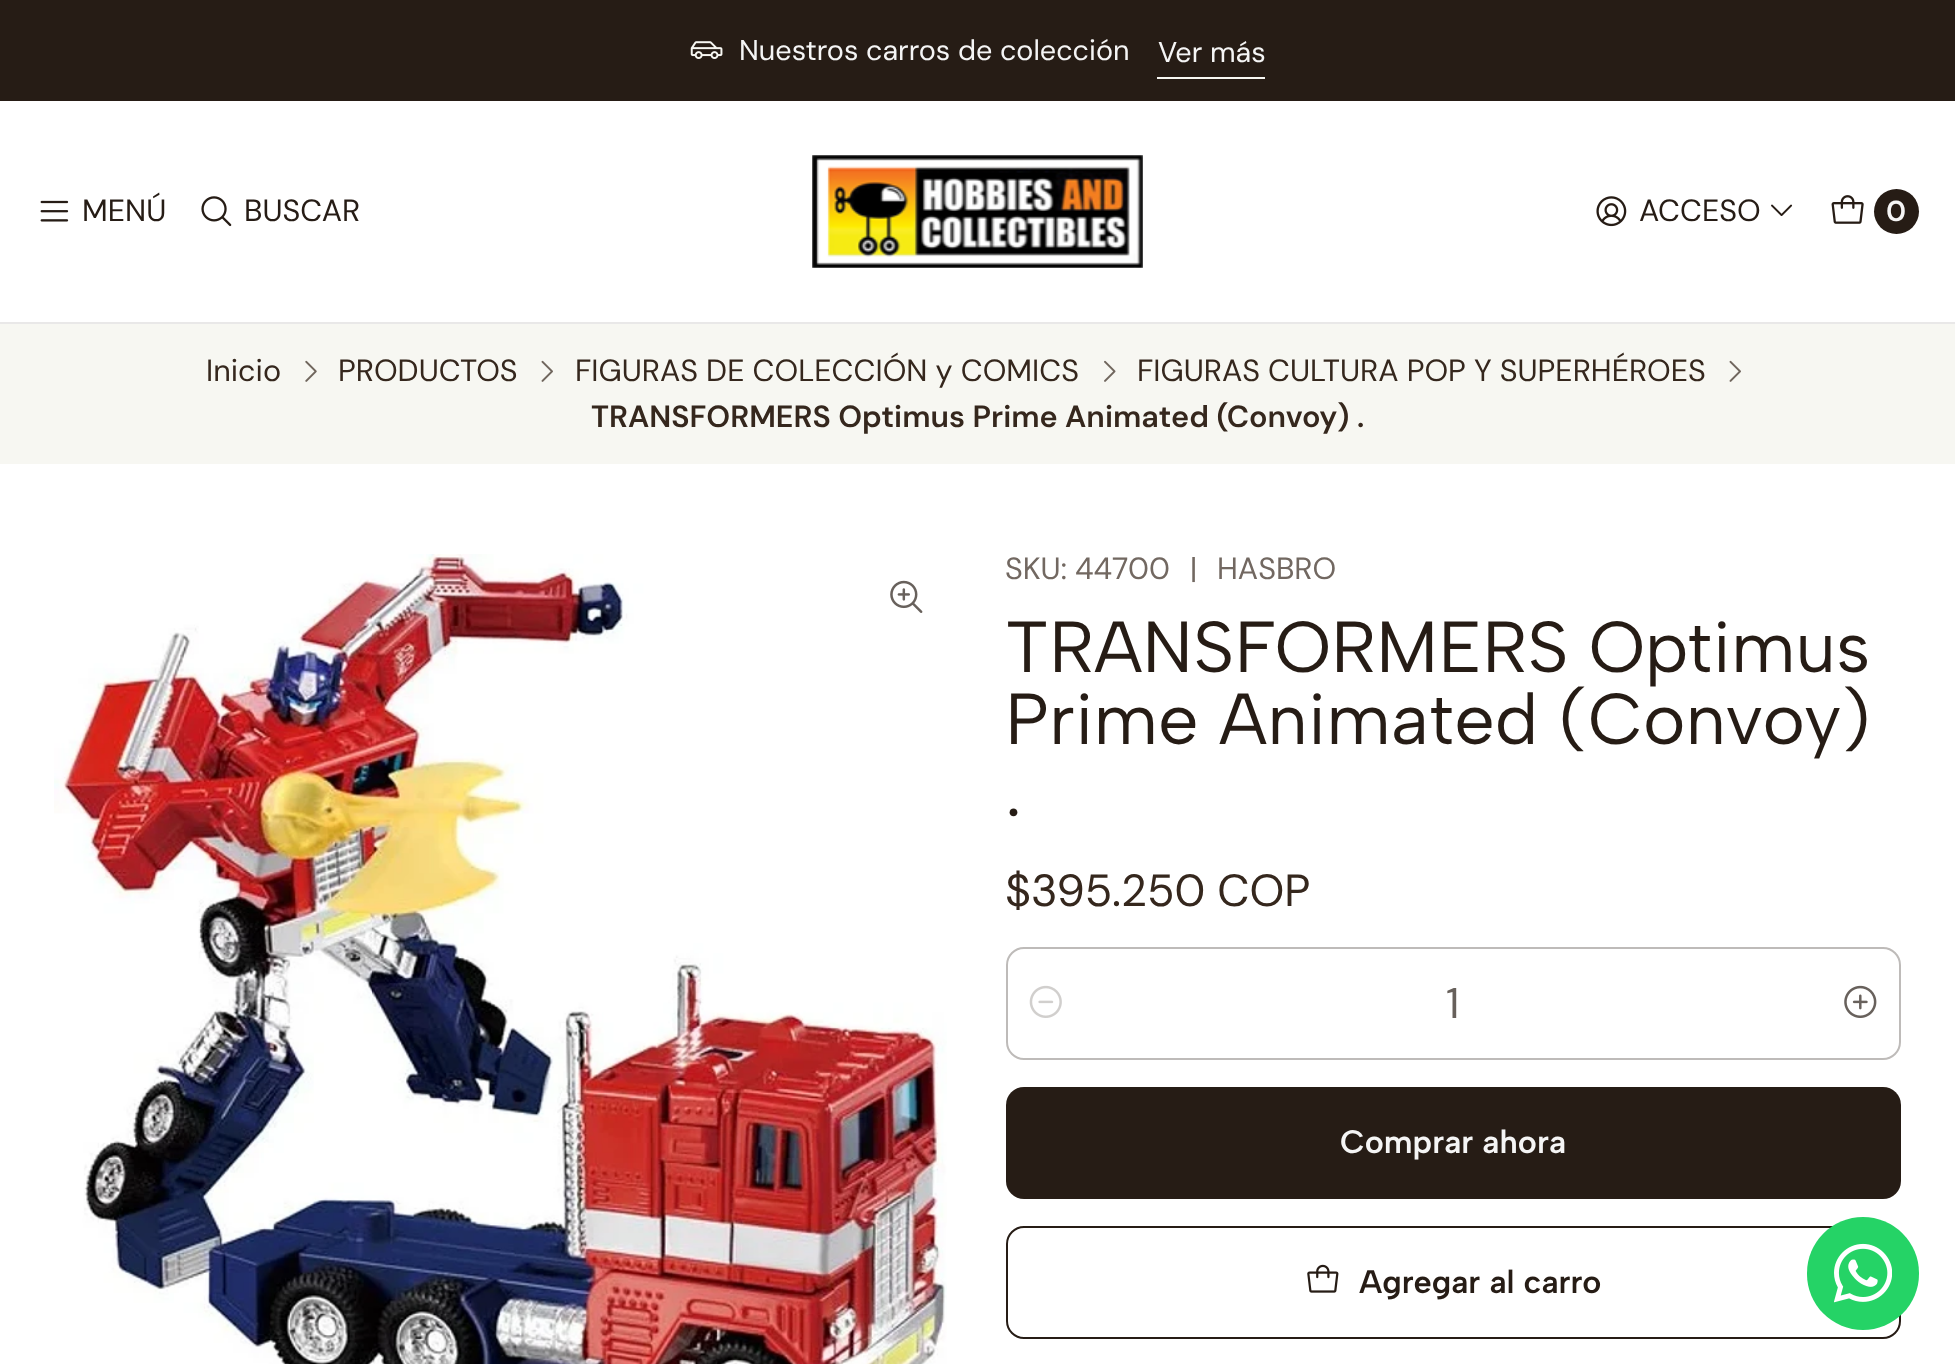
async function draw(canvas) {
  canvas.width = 1955
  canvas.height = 1364
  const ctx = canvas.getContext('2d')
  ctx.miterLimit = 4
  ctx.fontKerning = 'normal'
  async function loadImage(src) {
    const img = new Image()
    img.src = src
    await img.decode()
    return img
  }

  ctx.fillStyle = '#fff'
  ctx.fillRect(0, 0, 1955, 1364)
  ctx.fillStyle = '#261c15'
  ctx.fillRect(0, 0, 1955, 101)
  ctx.drawImage(await loadImage('image0.png'), 690, 41, 33, 18)
  ctx.font = '28.75px DM Sans'
  ctx.fillStyle = '#f5f5f5'
  ctx.fillText('Nuestros carros de colección', 739, 60)
  ctx.fillStyle = '#f7f7f2'
  ctx.fillRect(1157, 77, 108, 2)
  ctx.fillStyle = '#f5f5f5'
  ctx.fillText('Ver más', 1158, 62)
  ctx.fillStyle = '#e9e8e8'
  ctx.fillRect(0, 322, 1955, 2)
  ctx.drawImage(await loadImage('image1.png'), 40, 200, 29, 22)
  ctx.font = '30.6px DM Sans'
  ctx.fillStyle = '#261c15'
  ctx.fillText('MENÚ', 82, 221)
  ctx.drawImage(await loadImage('image2.png'), 201, 196, 31, 31)
  ctx.fillText('BUSCAR', 244, 221)
  ctx.drawImage(await loadImage('image3.png'), 812, 155, 331, 113)
  ctx.drawImage(await loadImage('image4.png'), 1596, 196, 31, 31)
  ctx.fillText('ACCESO', 1639, 221)
  ctx.drawImage(await loadImage('image5.png'), 1771, 204, 22, 12)
  ctx.drawImage(await loadImage('image6.png'), 1831, 195, 33, 29)
  ctx.beginPath()
  ctx.arc(1896.5, 211.5, 22.5, 0, 2 * Math.PI)
  ctx.fill()
  ctx.font = '600 28.75px DM Sans'
  ctx.fillStyle = '#f5f5f5'
  ctx.fillText('0', 1886, 221)
  ctx.fillStyle = '#f7f7f2'
  ctx.fillRect(0, 324, 1955, 140)
  ctx.font = '30.6px DM Sans'
  ctx.fillStyle = '#35271d'
  ctx.fillText('Inicio', 206, 381)
  ctx.drawImage(await loadImage('image7.png'), 305, 360, 12, 22)
  ctx.fillText('PRODUCTOS', 338, 381)
  ctx.drawImage(await loadImage('image8.png'), 541, 360, 12, 22)
  ctx.fillText('FIGURAS DE COLECCIÓN y COMICS', 575, 381)
  ctx.drawImage(await loadImage('image9.png'), 1104, 360, 12, 22)
  ctx.fillText('FIGURAS CULTURA POP Y SUPERHÉROES', 1137, 381)
  ctx.drawImage(await loadImage('image8.png'), 1729, 360, 12, 22)
  ctx.font = '600 30.6px DM Sans'
  ctx.fillText('TRANSFORMERS Optimus Prime Animated (Convoy) .', 591, 427)
  ctx.drawImage(await loadImage('image10.png'), 54, 554, 893, 810)
  ctx.drawImage(await loadImage('image11.png'), 890, 580, 33, 33)
  ctx.font = '30.6px DM Sans'
  ctx.fillStyle = '#726861'
  ctx.fillText('SKU: 44700', 1005, 579)
  ctx.fillText('|', 1190, 579)
  ctx.fillText('HASBRO', 1217, 579)
  ctx.font = '72px Albert Sans'
  ctx.fillStyle = '#261c15'
  ctx.fillText('TRANSFORMERS Optimus', 1005, 672)
  ctx.fillText('Prime Animated (Convoy)', 1005, 744)
  ctx.fillText('.', 1005, 816)
  ctx.font = '45px DM Sans'
  ctx.fillStyle = '#35271d'
  ctx.fillText('$395.250 COP', 1005, 906)
  ctx.beginPath()
  ctx.roundRect(1007, 948, 893, 111, 17)
  ctx.strokeStyle = '#bebbb9'
  ctx.lineWidth = 2
  ctx.stroke()
  ctx.drawImage(await loadImage('image12.png'), 1029, 985, 33, 33)
  ctx.font = '43px DM Sans'
  ctx.fillStyle = '#67605b'
  ctx.fillText('1', 1446, 1018)
  ctx.drawImage(await loadImage('image13.png'), 1844, 985, 33, 33)
  ctx.fillStyle = '#261c15'
  ctx.beginPath()
  ctx.roundRect(1006, 1087, 895, 112, 18)
  ctx.fill()
  ctx.font = '600 32.5px Albert Sans'
  ctx.fillStyle = '#f5f5f5'
  ctx.fillText('Comprar ahora', 1340, 1153)
  ctx.beginPath()
  ctx.roundRect(1007, 1227, 893, 111, 17)
  ctx.strokeStyle = '#261c15'
  ctx.stroke()
  ctx.drawImage(await loadImage('image14.png'), 1307, 1264, 32, 29)
  ctx.fillStyle = '#261c15'
  ctx.fillText('Agregar al carro', 1359, 1293)
  ctx.fillStyle = '#25d366'
  ctx.beginPath()
  ctx.roundRect(1807, 1217, 112, 113, 56)
  ctx.fill()
  ctx.drawImage(await loadImage('image15.png'), 1834, 1243, 58, 60)
}

draw(document.querySelector('canvas'))
